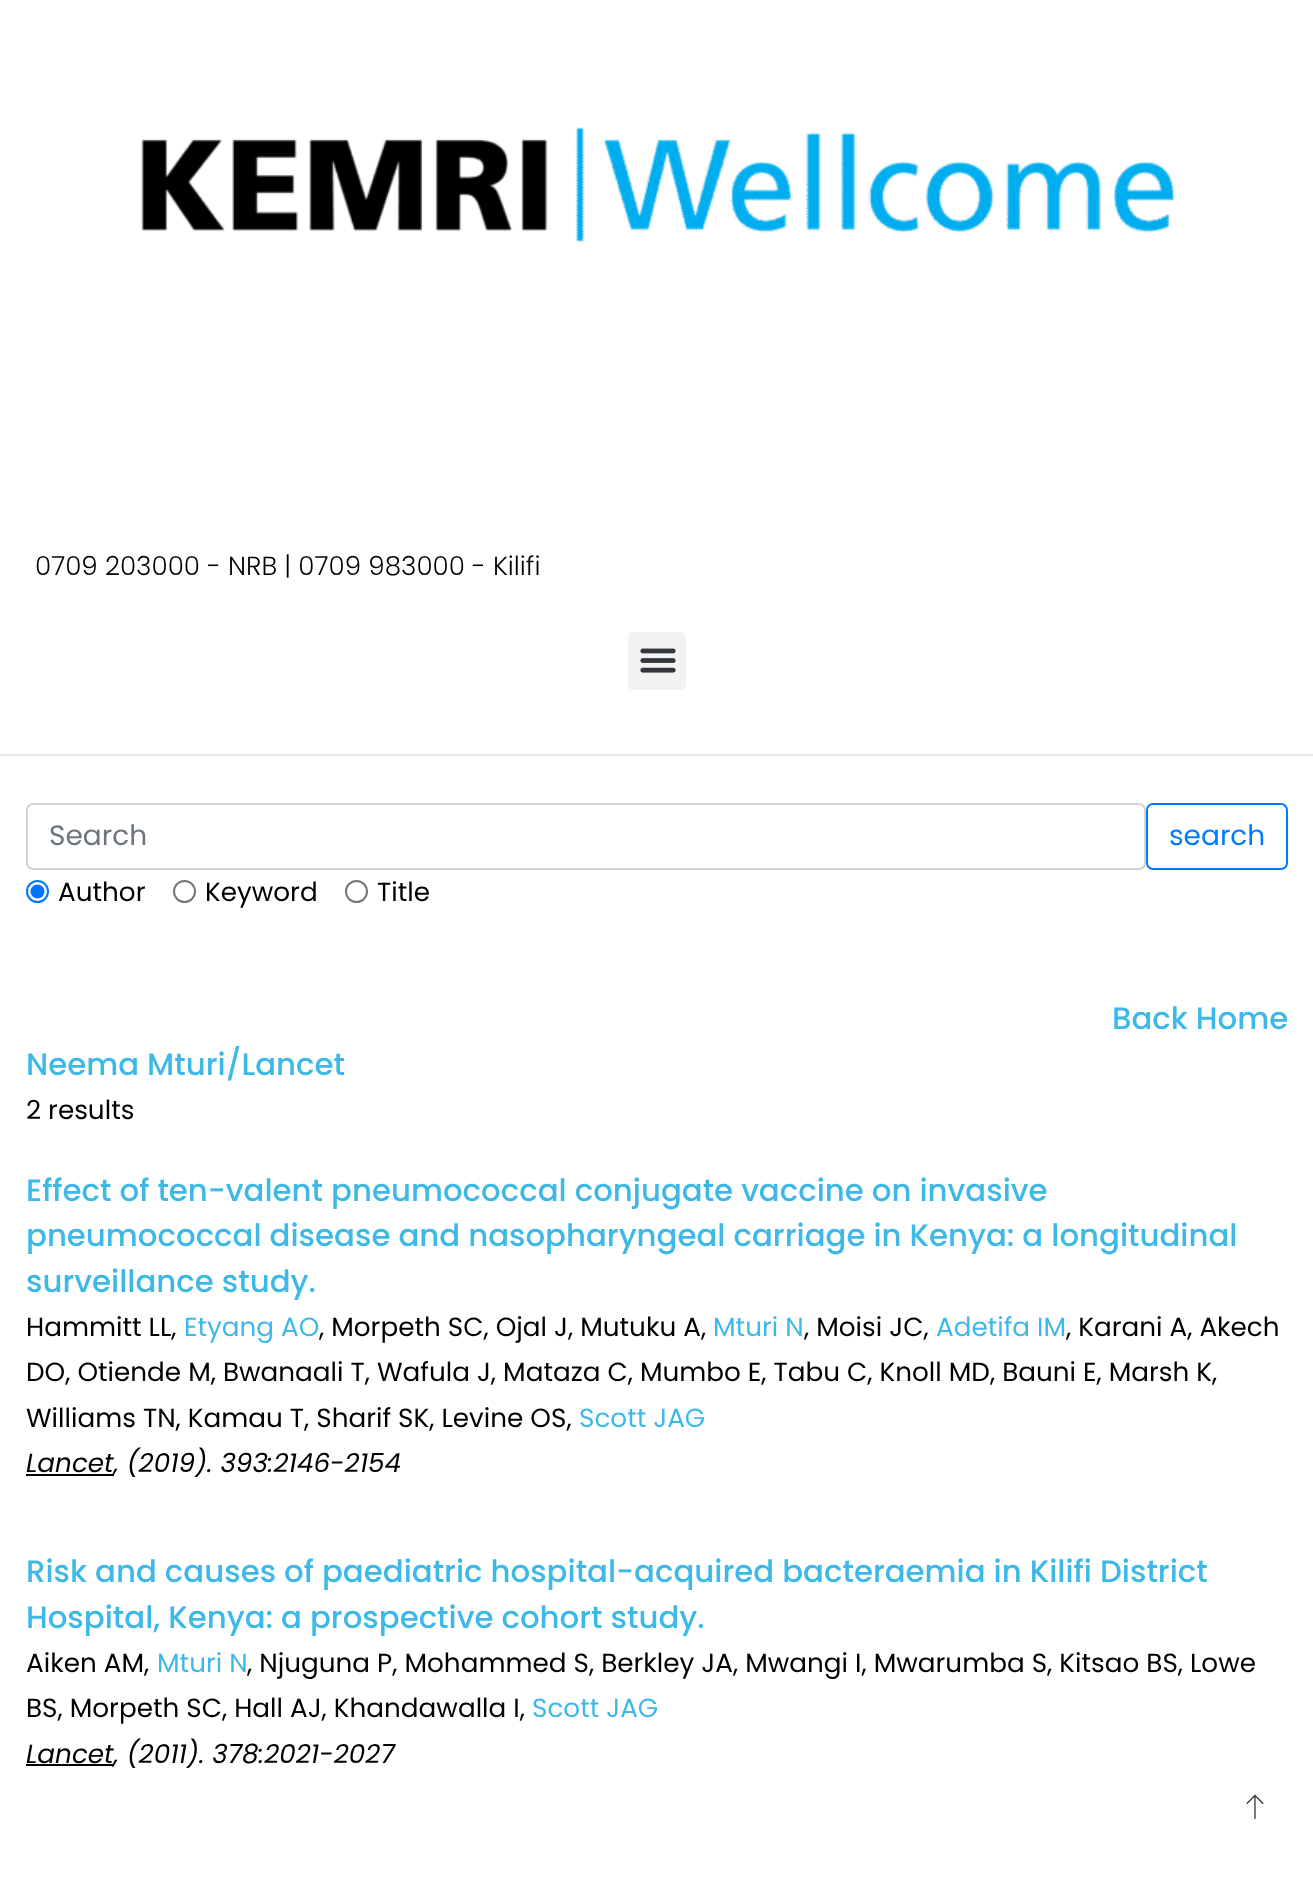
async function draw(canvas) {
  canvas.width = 1313
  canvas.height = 1884
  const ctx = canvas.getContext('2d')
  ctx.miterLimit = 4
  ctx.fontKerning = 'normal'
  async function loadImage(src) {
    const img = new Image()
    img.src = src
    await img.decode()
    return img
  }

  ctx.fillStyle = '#fff'
  ctx.fillRect(0, 0, 1313, 1884)
  ctx.drawImage(await loadImage('image0.png'), 141, 127, 1035, 116)
  ctx.font = '300 26.25px Poppins'
  ctx.fillStyle = '#000'
  ctx.fillText('0709 203000 - NRB | 0709 983000 - Kilifi', 35, 575)
  ctx.fillStyle = '#f2f2f2'
  ctx.beginPath()
  ctx.roundRect(628, 632, 58, 58, 5)
  ctx.fill()
  ctx.drawImage(await loadImage('image1.png'), 640, 648, 36, 25)
  ctx.fillStyle = '#e6e6e6'
  ctx.fillRect(0, 754, 1313, 2)
  ctx.beginPath()
  ctx.roundRect(27, 804, 1118, 65, 6)
  ctx.strokeStyle = '#ced4da'
  ctx.lineWidth = 2
  ctx.stroke()
  ctx.font = '28px Poppins'
  ctx.fillStyle = '#6c757d'
  ctx.fillText('Search', 49, 845)
  ctx.beginPath()
  ctx.roundRect(1147, 804, 140, 65, 6)
  ctx.strokeStyle = '#007bff'
  ctx.stroke()
  ctx.fillStyle = '#007bff'
  ctx.fillText('search', 1169, 845)
  ctx.beginPath()
  ctx.arc(37.5, 891.5, 10.5, 0, 2 * Math.PI)
  ctx.strokeStyle = '#0075ff'
  ctx.stroke()
  ctx.fillStyle = '#0075ff'
  ctx.beginPath()
  ctx.arc(37.5, 891.5, 7, 0, 2 * Math.PI)
  ctx.fill()
  ctx.font = '26.25px Poppins'
  ctx.fillStyle = '#000'
  ctx.fillText('Author', 58, 901)
  ctx.beginPath()
  ctx.arc(184.5, 891.5, 10.5, 0, 2 * Math.PI)
  ctx.strokeStyle = '#767676'
  ctx.stroke()
  ctx.fillText('Keyword', 205, 901)
  ctx.beginPath()
  ctx.arc(356.5, 891.5, 10.5, 0, 2 * Math.PI)
  ctx.stroke()
  ctx.fillText('Title', 377, 901)
  ctx.font = '500 30.8px Poppins'
  ctx.fillStyle = '#3eb9e7'
  ctx.fillText('Back Home', 1112, 1029)
  ctx.fillText('Neema Mturi/Lancet', 26, 1075)
  ctx.font = '26.25px Poppins'
  ctx.fillStyle = '#000'
  ctx.fillText('2 results', 26, 1119)
  ctx.font = '500 30.8px Poppins'
  ctx.fillStyle = '#3eb9e7'
  ctx.fillText('Effect of ten-valent pneumococcal conjugate vaccine on invasive', 26, 1201)
  ctx.fillText('pneumococcal disease and nasopharyngeal carriage in Kenya: a longitudinal', 26, 1246)
  ctx.fillText('surveillance study.', 26, 1292)
  ctx.font = '26.25px Poppins'
  ctx.fillStyle = '#000'
  ctx.fillText('Hammitt LL,', 26, 1336)
  ctx.fillStyle = '#3eb9e7'
  ctx.fillText('Etyang AO', 184, 1336)
  ctx.fillStyle = '#000'
  ctx.fillText(', Morpeth SC, Ojal J, Mutuku A,', 319, 1336)
  ctx.fillStyle = '#3eb9e7'
  ctx.fillText('Mturi N', 713, 1336)
  ctx.fillStyle = '#000'
  ctx.fillText(', Moisi JC,', 804, 1336)
  ctx.fillStyle = '#3eb9e7'
  ctx.fillText('Adetifa IM', 936, 1336)
  ctx.fillStyle = '#000'
  ctx.fillText(', Karani A, Akech', 1066, 1336)
  ctx.fillText('DO, Otiende M, Bwanaali T, Wafula J, Mataza C, Mumbo E, Tabu C, Knoll MD, Bauni E, Marsh K,', 26, 1381)
  ctx.fillText('Williams TN, Kamau T, Sharif SK, Levine OS,', 26, 1427)
  ctx.fillStyle = '#3eb9e7'
  ctx.fillText('Scott JAG', 579, 1427)
  ctx.fillStyle = '#000'
  ctx.fillRect(26, 1474, 88, 2)
  ctx.font = 'italic 26.25px Poppins'
  ctx.fillText('Lancet, (2019). 393:2146-2154', 26, 1472)
  ctx.font = '500 30.8px Poppins'
  ctx.fillStyle = '#3eb9e7'
  ctx.fillText('Risk and causes of paediatric hospital-acquired bacteraemia in Kilifi District', 26, 1582)
  ctx.fillText('Hospital, Kenya: a prospective cohort study.', 26, 1628)
  ctx.font = '26.25px Poppins'
  ctx.fillStyle = '#000'
  ctx.fillText('Aiken AM,', 26, 1672)
  ctx.fillStyle = '#3eb9e7'
  ctx.fillText('Mturi N', 157, 1672)
  ctx.fillStyle = '#000'
  ctx.fillText(', Njuguna P, Mohammed S, Berkley JA, Mwangi I, Mwarumba S, Kitsao BS, Lowe', 247, 1672)
  ctx.fillText('BS, Morpeth SC, Hall AJ, Khandawalla I,', 26, 1717)
  ctx.fillStyle = '#3eb9e7'
  ctx.fillText('Scott JAG', 532, 1717)
  ctx.fillStyle = '#000'
  ctx.fillRect(26, 1764, 88, 2)
  ctx.font = 'italic 26.25px Poppins'
  ctx.fillText('Lancet, (2011). 378:2021-2027', 26, 1763)
  ctx.drawImage(await loadImage('image2.png'), 1246, 1794, 18, 25)
}

draw(document.querySelector('canvas'))
